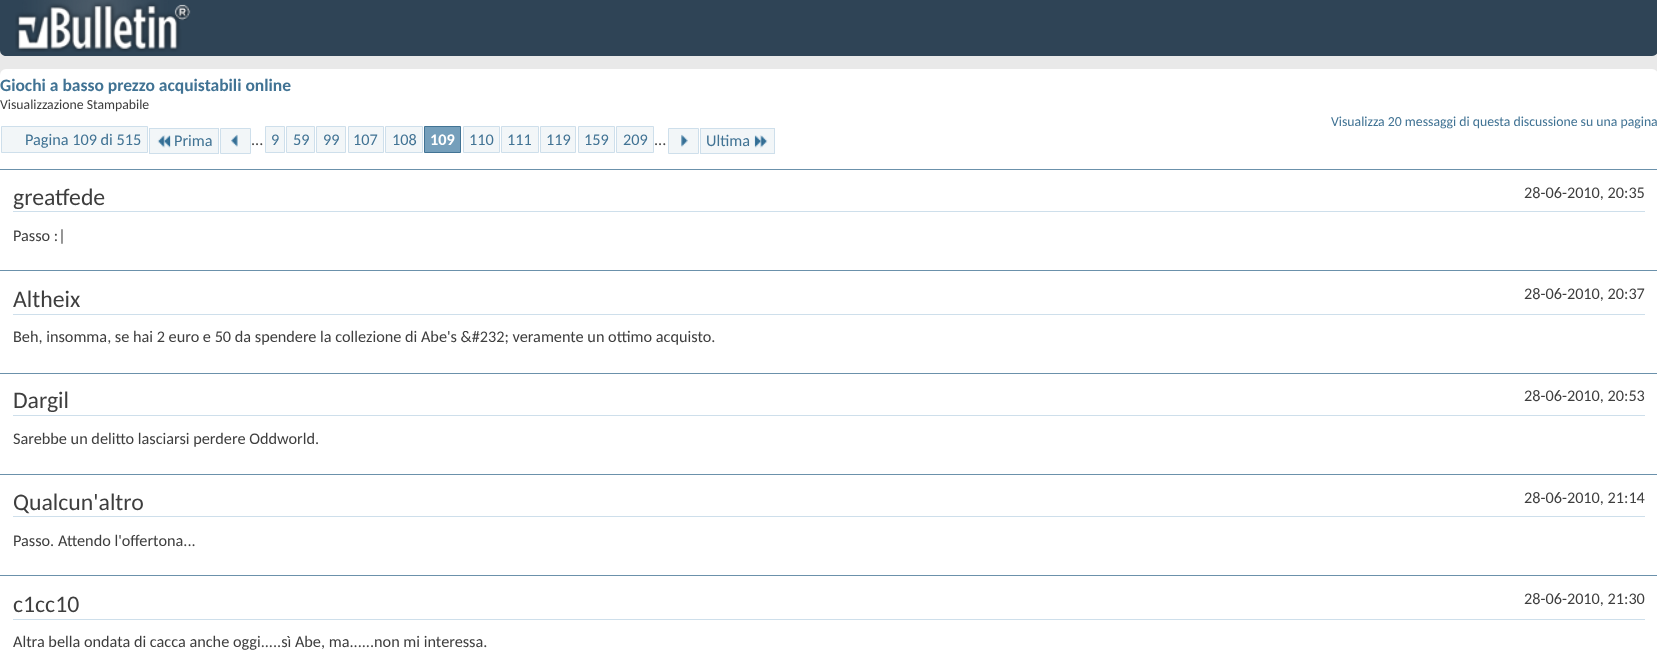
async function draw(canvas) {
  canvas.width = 1657
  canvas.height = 651
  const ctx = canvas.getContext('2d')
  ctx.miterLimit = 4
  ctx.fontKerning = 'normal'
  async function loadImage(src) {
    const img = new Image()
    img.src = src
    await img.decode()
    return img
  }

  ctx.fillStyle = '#e9e9e9'
  ctx.fillRect(0, 0, 1657, 651)
  ctx.fillStyle = '#2f4456'
  ctx.beginPath()
  ctx.moveTo(0, 0)
  ctx.lineTo(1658, 0)
  ctx.lineTo(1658, 50)
  ctx.bezierCurveTo(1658, 53.5, 1655.5, 56, 1652, 56)
  ctx.lineTo(6, 56)
  ctx.bezierCurveTo(2.5, 56, 0, 53.5, 0, 50)
  ctx.closePath()
  ctx.fill()
  ctx.drawImage(await loadImage('image0.png'), 15, 0, 176, 52)
  ctx.fillStyle = '#fff'
  ctx.beginPath()
  ctx.roundRect(0, 69, 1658, 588, 6)
  ctx.fill()
  ctx.font = 'bold 17.5px Carlito'
  ctx.fillStyle = '#417394'
  ctx.fillText('Giochi a basso prezzo acquistabili online', 0, 91)
  ctx.font = '13.75px Carlito'
  ctx.fillStyle = '#3e3e3e'
  ctx.fillText('Visualizzazione Stampabile', 0, 109)
  ctx.fillStyle = '#417394'
  ctx.fillText('Visualizza 20 messaggi di questa discussione su una pagina', 1331, 126)
  ctx.fillStyle = '#f2f6f8'
  ctx.beginPath()
  ctx.rect(1.5, 126.5, 146, 26)
  ctx.fill()
  ctx.strokeStyle = '#cedfeb'
  ctx.stroke()
  ctx.font = '16.25px Carlito'
  ctx.fillStyle = '#417394'
  ctx.fillText('Pagina 109 di 515', 25, 145)
  ctx.fillStyle = '#f2f6f8'
  ctx.fillRect(150, 129, 68, 24)
  ctx.drawImage(await loadImage('image1.png'), 157, 135, 14, 13)
  ctx.fillStyle = '#417394'
  ctx.fillText('Prima', 174, 146)
  ctx.fillStyle = '#cedfeb'
  ctx.fillRect(149, 128, 70, 1)
  ctx.fillRect(149, 153, 25, 1)
  ctx.fillRect(149, 128, 1, 26)
  ctx.fillRect(218, 128, 1, 26)
  ctx.fillRect(174, 153, 45, 1)
  ctx.fillStyle = '#f2f6f8'
  ctx.beginPath()
  ctx.rect(220.5, 128.5, 30, 25)
  ctx.fill()
  ctx.stroke()
  ctx.drawImage(await loadImage('image2.png'), 231, 134, 7, 13)
  ctx.fillStyle = '#3e3e3e'
  ctx.fillText('...', 251, 145)
  ctx.fillStyle = '#f2f6f8'
  ctx.beginPath()
  ctx.rect(265.5, 126.5, 19, 26)
  ctx.fill()
  ctx.stroke()
  ctx.fillStyle = '#417394'
  ctx.fillText('9', 271, 145)
  ctx.fillStyle = '#f2f6f8'
  ctx.beginPath()
  ctx.rect(286.5, 126.5, 28, 26)
  ctx.fill()
  ctx.stroke()
  ctx.fillStyle = '#417394'
  ctx.fillText('59', 293, 145)
  ctx.fillStyle = '#f2f6f8'
  ctx.beginPath()
  ctx.rect(316.5, 126.5, 29, 26)
  ctx.fill()
  ctx.stroke()
  ctx.fillStyle = '#417394'
  ctx.fillText('99', 323, 145)
  ctx.fillStyle = '#f2f6f8'
  ctx.beginPath()
  ctx.rect(348.5, 126.5, 35, 26)
  ctx.fill()
  ctx.stroke()
  ctx.fillStyle = '#417394'
  ctx.fillText('107', 353, 145)
  ctx.fillStyle = '#f2f6f8'
  ctx.beginPath()
  ctx.rect(385.5, 126.5, 37, 26)
  ctx.fill()
  ctx.stroke()
  ctx.fillStyle = '#417394'
  ctx.fillText('108', 392, 145)
  ctx.fillStyle = '#759fbb'
  ctx.beginPath()
  ctx.rect(424.5, 126.5, 36, 26)
  ctx.fill()
  ctx.strokeStyle = '#417394'
  ctx.stroke()
  ctx.font = 'bold 16.25px Carlito'
  ctx.fillStyle = '#fff'
  ctx.fillText('109', 430, 145)
  ctx.fillStyle = '#f2f6f8'
  ctx.beginPath()
  ctx.rect(463.5, 126.5, 36, 26)
  ctx.fill()
  ctx.strokeStyle = '#cedfeb'
  ctx.stroke()
  ctx.font = '16.25px Carlito'
  ctx.fillStyle = '#417394'
  ctx.fillText('110', 469, 145)
  ctx.fillStyle = '#f2f6f8'
  ctx.beginPath()
  ctx.rect(501.5, 126.5, 37, 26)
  ctx.fill()
  ctx.stroke()
  ctx.fillStyle = '#417394'
  ctx.fillText('111', 507, 145)
  ctx.fillStyle = '#f2f6f8'
  ctx.beginPath()
  ctx.rect(540.5, 126.5, 35, 26)
  ctx.fill()
  ctx.stroke()
  ctx.fillStyle = '#417394'
  ctx.fillText('119', 546, 145)
  ctx.fillStyle = '#f2f6f8'
  ctx.beginPath()
  ctx.rect(578.5, 126.5, 36, 26)
  ctx.fill()
  ctx.stroke()
  ctx.fillStyle = '#417394'
  ctx.fillText('159', 584, 145)
  ctx.fillStyle = '#f2f6f8'
  ctx.beginPath()
  ctx.rect(616.5, 126.5, 37, 26)
  ctx.fill()
  ctx.stroke()
  ctx.fillStyle = '#417394'
  ctx.fillText('209', 623, 145)
  ctx.fillStyle = '#3e3e3e'
  ctx.fillText('...', 654, 145)
  ctx.fillStyle = '#f2f6f8'
  ctx.beginPath()
  ctx.rect(668.5, 128.5, 30, 25)
  ctx.fill()
  ctx.stroke()
  ctx.drawImage(await loadImage('image3.png'), 681, 134, 7, 13)
  ctx.fillRect(701, 129, 73, 24)
  ctx.fillStyle = '#417394'
  ctx.fillText('Ultima', 706, 146)
  ctx.fillStyle = '#cedfeb'
  ctx.fillRect(700, 128, 75, 1)
  ctx.fillRect(700, 153, 50, 1)
  ctx.fillRect(700, 128, 1, 26)
  ctx.fillRect(774, 128, 1, 26)
  ctx.fillRect(750, 153, 25, 1)
  ctx.drawImage(await loadImage('image4.png'), 754, 135, 14, 13)
  ctx.fillStyle = '#6b91ab'
  ctx.fillRect(0, 169, 1657, 1)
  ctx.fillStyle = '#cedfeb'
  ctx.fillRect(13, 211, 1632, 1)
  ctx.font = '23.75px Carlito'
  ctx.fillStyle = '#3e3e3e'
  ctx.fillText('greatfede', 13, 205)
  ctx.font = '16.25px Carlito'
  ctx.fillText('28-06-2010, 20:35', 1524, 198)
  ctx.fillText('Passo :|', 13, 241)
  ctx.fillStyle = '#6b91ab'
  ctx.fillRect(0, 270, 1657, 1)
  ctx.fillStyle = '#cedfeb'
  ctx.fillRect(13, 314, 1632, 1)
  ctx.font = '23.75px Carlito'
  ctx.fillStyle = '#3e3e3e'
  ctx.fillText('Altheix', 13, 307)
  ctx.font = '16.25px Carlito'
  ctx.fillText('28-06-2010, 20:37', 1524, 299)
  ctx.fillText('Beh, insomma, se hai 2 euro e 50 da spendere la collezione di Abe\'s &#232; veramente un ottimo acquisto.', 13, 342)
  ctx.fillStyle = '#6b91ab'
  ctx.fillRect(0, 373, 1657, 1)
  ctx.fillStyle = '#cedfeb'
  ctx.fillRect(13, 415, 1632, 1)
  ctx.font = '23.75px Carlito'
  ctx.fillStyle = '#3e3e3e'
  ctx.fillText('Dargil', 13, 408)
  ctx.font = '16.25px Carlito'
  ctx.fillText('28-06-2010, 20:53', 1524, 401)
  ctx.fillText('Sarebbe un delitto lasciarsi perdere Oddworld.', 13, 444)
  ctx.fillStyle = '#6b91ab'
  ctx.fillRect(0, 474, 1657, 1)
  ctx.fillStyle = '#cedfeb'
  ctx.fillRect(13, 516, 1632, 1)
  ctx.font = '23.75px Carlito'
  ctx.fillStyle = '#3e3e3e'
  ctx.fillText('Qualcun\'altro', 13, 510)
  ctx.font = '16.25px Carlito'
  ctx.fillText('28-06-2010, 21:14', 1524, 503)
  ctx.fillText('Passo. Attendo l\'offertona...', 13, 546)
  ctx.fillStyle = '#6b91ab'
  ctx.fillRect(0, 575, 1657, 1)
  ctx.fillStyle = '#cedfeb'
  ctx.fillRect(13, 619, 1632, 1)
  ctx.font = '23.75px Carlito'
  ctx.fillStyle = '#3e3e3e'
  ctx.fillText('c1cc10', 13, 612)
  ctx.font = '16.25px Carlito'
  ctx.fillText('28-06-2010, 21:30', 1524, 604)
  ctx.fillText('Altra bella ondata di cacca anche oggi.....sì Abe, ma......non mi interessa.', 13, 647)
}

draw(document.querySelector('canvas'))
